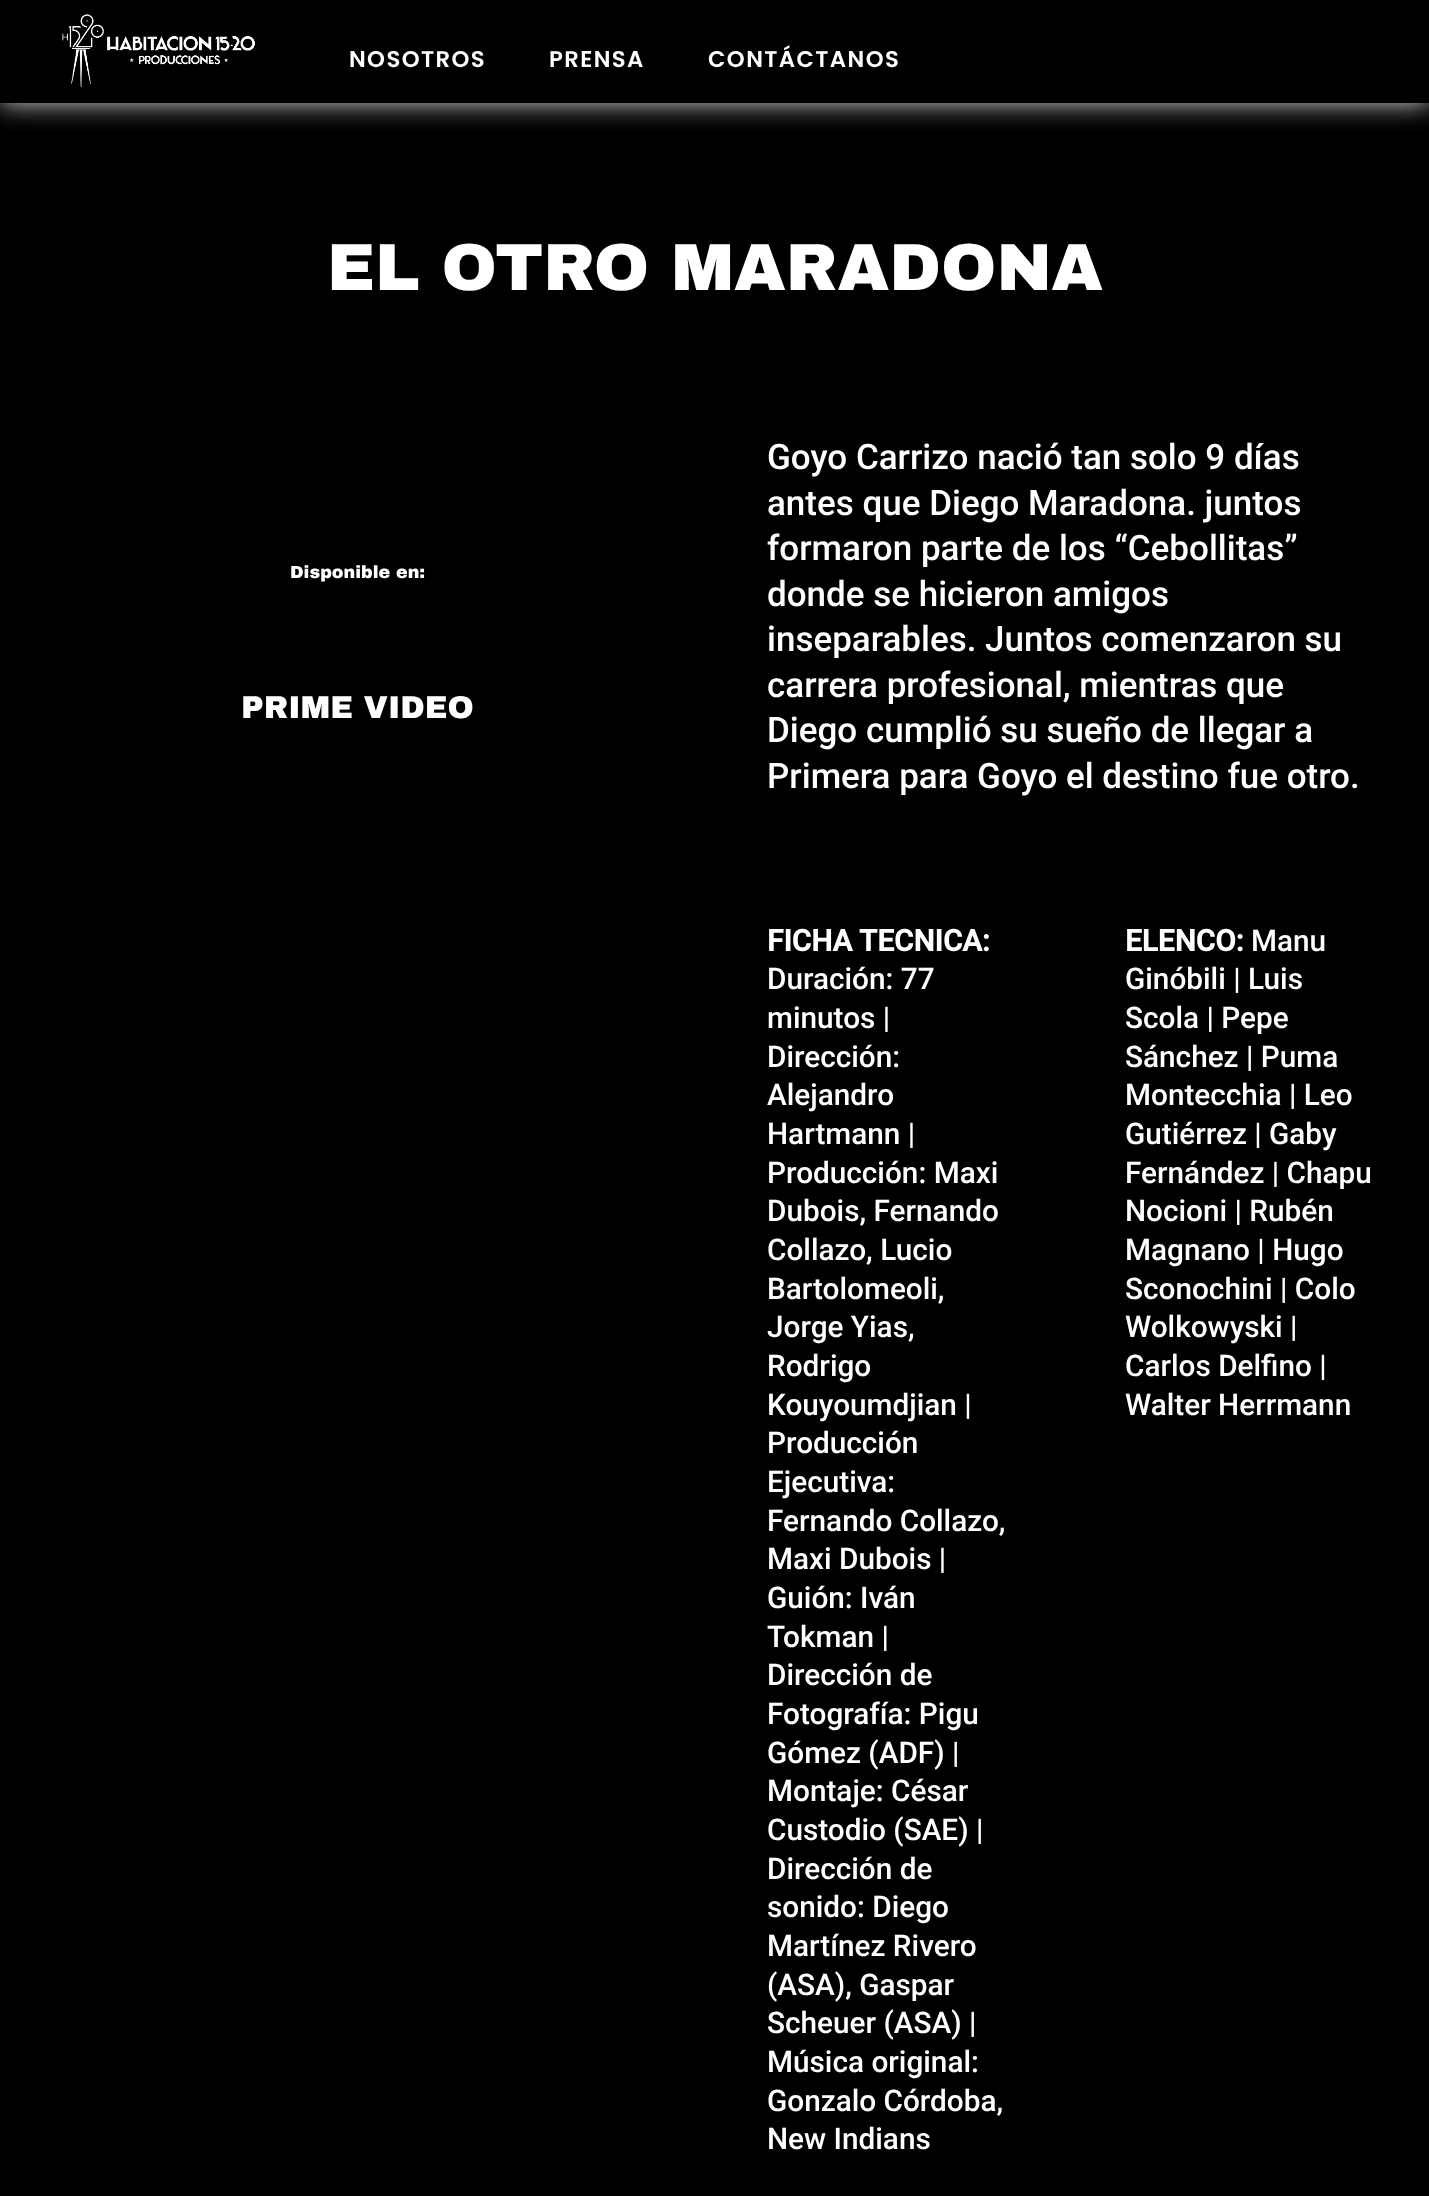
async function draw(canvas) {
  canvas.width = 1429
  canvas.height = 2196
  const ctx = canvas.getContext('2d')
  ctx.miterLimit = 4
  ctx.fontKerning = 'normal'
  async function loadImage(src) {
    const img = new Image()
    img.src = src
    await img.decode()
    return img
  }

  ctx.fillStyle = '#000'
  ctx.fillRect(0, 0, 1429, 2196)
  ctx.save()
  ctx.beginPath()
  ctx.rect(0, 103, 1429, 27)
  ctx.clip()
  ctx.fillStyle = '#dedede'
  ctx.filter = 'blur(13px)'
  ctx.beginPath()
  ctx.rect(0, -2, 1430, 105)
  ctx.fill()
  ctx.filter = 'none'
  ctx.restore()
  ctx.drawImage(await loadImage('image0.png'), 62, 14, 193, 73)
  ctx.letterSpacing = '1.4px'
  ctx.font = '600 22.75px Poppins'
  ctx.fillStyle = '#fff'
  ctx.fillText('NOSOTROS', 349, 67)
  ctx.fillText('PRENSA', 549, 67)
  ctx.fillText('CONTÁCTANOS', 708, 67)
  ctx.letterSpacing = '0px'
  ctx.font = '900 66.5px Archivo Black'
  ctx.fillText('EL OTRO MARADONA', 327, 290)
  ctx.font = '900 17.5px Archivo Black'
  ctx.fillText('Disponible en:', 290, 578)
  ctx.font = '900 31.5px Archivo Black'
  ctx.fillText('PRIME VIDEO', 241, 718)
  ctx.font = '500 35px Roboto'
  ctx.fillText('Goyo Carrizo nació tan solo 9 días', 767, 469)
  ctx.fillText('antes que Diego Maradona. juntos', 767, 515)
  ctx.fillText('formaron parte de los “Cebollitas”', 767, 560)
  ctx.fillText('donde se hicieron amigos', 767, 606)
  ctx.fillText('inseparables. Juntos comenzaron su', 767, 651)
  ctx.fillText('carrera profesional, mientras que', 767, 697)
  ctx.fillText('Diego cumplió su sueño de llegar a', 767, 742)
  ctx.fillText('Primera para Goyo el destino fue otro.', 767, 788)
  ctx.font = 'bold 29.75px Roboto'
  ctx.fillText('FICHA TECNICA:', 767, 951)
  ctx.font = '500 29.75px Roboto'
  ctx.fillText('Duración: 77', 767, 989)
  ctx.fillText('minutos |', 767, 1028)
  ctx.fillText('Dirección:', 767, 1067)
  ctx.fillText('Alejandro', 767, 1105)
  ctx.fillText('Hartmann |', 767, 1144)
  ctx.fillText('Producción: Maxi', 767, 1183)
  ctx.fillText('Dubois, Fernando', 767, 1221)
  ctx.fillText('Collazo, Lucio', 767, 1260)
  ctx.fillText('Bartolomeoli,', 767, 1299)
  ctx.fillText('Jorge Yias,', 767, 1337)
  ctx.fillText('Rodrigo', 767, 1376)
  ctx.fillText('Kouyoumdjian |', 767, 1415)
  ctx.fillText('Producción', 767, 1453)
  ctx.fillText('Ejecutiva:', 767, 1492)
  ctx.fillText('Fernando Collazo,', 767, 1531)
  ctx.fillText('Maxi Dubois |', 767, 1569)
  ctx.fillText('Guión: Iván', 767, 1608)
  ctx.fillText('Tokman |', 767, 1647)
  ctx.fillText('Dirección de', 767, 1685)
  ctx.fillText('Fotografía: Pigu', 767, 1724)
  ctx.fillText('Gómez (ADF) |', 767, 1763)
  ctx.fillText('Montaje: César', 767, 1801)
  ctx.fillText('Custodio (SAE) |', 767, 1840)
  ctx.fillText('Dirección de', 767, 1879)
  ctx.fillText('sonido: Diego', 767, 1917)
  ctx.fillText('Martínez Rivero', 767, 1956)
  ctx.fillText('(ASA), Gaspar', 767, 1995)
  ctx.fillText('Scheuer (ASA) |', 767, 2033)
  ctx.fillText('Música original:', 767, 2072)
  ctx.fillText('Gonzalo Córdoba,', 767, 2111)
  ctx.fillText('New Indians', 767, 2149)
  ctx.font = 'bold 29.75px Roboto'
  ctx.fillText('ELENCO:', 1125, 951)
  ctx.font = '500 29.75px Roboto'
  ctx.fillText('Manu', 1251, 951)
  ctx.fillText('Ginóbili | Luis', 1125, 989)
  ctx.fillText('Scola | Pepe', 1125, 1028)
  ctx.fillText('Sánchez | Puma', 1125, 1067)
  ctx.fillText('Montecchia | Leo', 1125, 1105)
  ctx.fillText('Gutiérrez | Gaby', 1125, 1144)
  ctx.fillText('Fernández | Chapu', 1125, 1183)
  ctx.fillText('Nocioni | Rubén', 1125, 1221)
  ctx.fillText('Magnano | Hugo', 1125, 1260)
  ctx.fillText('Sconochini | Colo', 1125, 1299)
  ctx.fillText('Wolkowyski |', 1125, 1337)
  ctx.fillText('Carlos Delfino |', 1125, 1376)
  ctx.fillText('Walter Herrmann', 1125, 1415)
}

draw(document.querySelector('canvas'))
